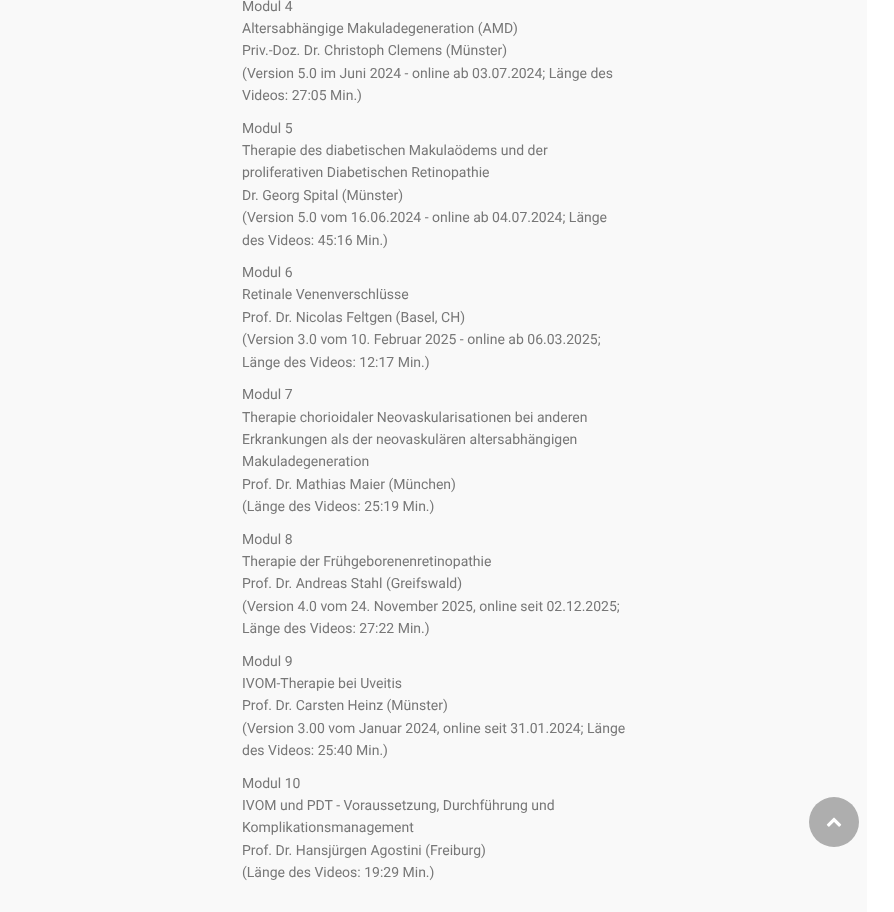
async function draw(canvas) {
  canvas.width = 894
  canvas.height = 912
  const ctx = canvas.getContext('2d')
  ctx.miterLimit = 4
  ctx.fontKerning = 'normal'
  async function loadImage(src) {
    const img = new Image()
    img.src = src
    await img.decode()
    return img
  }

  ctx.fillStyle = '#fff'
  ctx.fillRect(0, 0, 894, 912)
  ctx.fillStyle = '#f9f9f9'
  ctx.fillRect(0, 0, 867, 912)
  ctx.font = '14px Roboto'
  ctx.fillStyle = '#777'
  ctx.fillText('Modul 4', 242, 11)
  ctx.fillText('Altersabhängige Makuladegeneration (AMD)', 242, 33)
  ctx.fillText('Priv.-Doz. Dr. Christoph Clemens (Münster)', 242, 55)
  ctx.fillText('(Version 5.0 im Juni 2024 - online ab 03.07.2024; Länge des', 242, 78)
  ctx.fillText('Videos: 27:05 Min.)', 242, 100)
  ctx.fillText('Modul 5', 242, 133)
  ctx.fillText('Therapie des diabetischen Makulaödems und der', 242, 155)
  ctx.fillText('proliferativen Diabetischen Retinopathie', 242, 177)
  ctx.fillText('Dr. Georg Spital (Münster)', 242, 200)
  ctx.fillText('(Version 5.0 vom 16.06.2024 - online ab 04.07.2024; Länge', 242, 222)
  ctx.fillText('des Videos: 45:16 Min.)', 242, 245)
  ctx.fillText('Modul 6', 242, 277)
  ctx.fillText('Retinale Venenverschlüsse', 242, 299)
  ctx.fillText('Prof. Dr. Nicolas Feltgen (Basel, CH)', 242, 322)
  ctx.fillText('(Version 3.0 vom 10. Februar 2025 - online ab 06.03.2025;', 242, 344)
  ctx.fillText('Länge des Videos: 12:17 Min.)', 242, 367)
  ctx.fillText('Modul 7', 242, 399)
  ctx.fillText('Therapie chorioidaler Neovaskularisationen bei anderen', 242, 422)
  ctx.fillText('Erkrankungen als der neovaskulären altersabhängigen', 242, 444)
  ctx.fillText('Makuladegeneration', 242, 466)
  ctx.fillText('Prof. Dr. Mathias Maier (München)', 242, 489)
  ctx.fillText('(Länge des Videos: 25:19 Min.)', 242, 511)
  ctx.fillText('Modul 8', 242, 544)
  ctx.fillText('Therapie der Frühgeborenenretinopathie', 242, 566)
  ctx.fillText('Prof. Dr. Andreas Stahl (Greifswald)', 242, 588)
  ctx.fillText('(Version 4.0 vom 24. November 2025, online seit 02.12.2025;', 242, 611)
  ctx.fillText('Länge des Videos: 27:22 Min.)', 242, 633)
  ctx.fillText('Modul 9', 242, 666)
  ctx.fillText('IVOM-Therapie bei Uveitis', 242, 688)
  ctx.fillText('Prof. Dr. Carsten Heinz (Münster)', 242, 710)
  ctx.fillText('(Version 3.00 vom Januar 2024, online seit 31.01.2024; Länge', 242, 733)
  ctx.fillText('des Videos: 25:40 Min.)', 242, 755)
  ctx.fillText('Modul 10', 242, 788)
  ctx.fillText('IVOM und PDT - Voraussetzung, Durchführung und', 242, 810)
  ctx.fillText('Komplikationsmanagement', 242, 832)
  ctx.fillText('Prof. Dr. Hansjürgen Agostini (Freiburg)', 242, 855)
  ctx.fillText('(Länge des Videos: 19:29 Min.)', 242, 877)
  ctx.fillStyle = '#aeaeae'
  ctx.beginPath()
  ctx.arc(834, 822, 25, 0, 2 * Math.PI)
  ctx.fill()
  ctx.drawImage(await loadImage('image0.png'), 826, 817, 16, 10)
}

draw(document.querySelector('canvas'))
